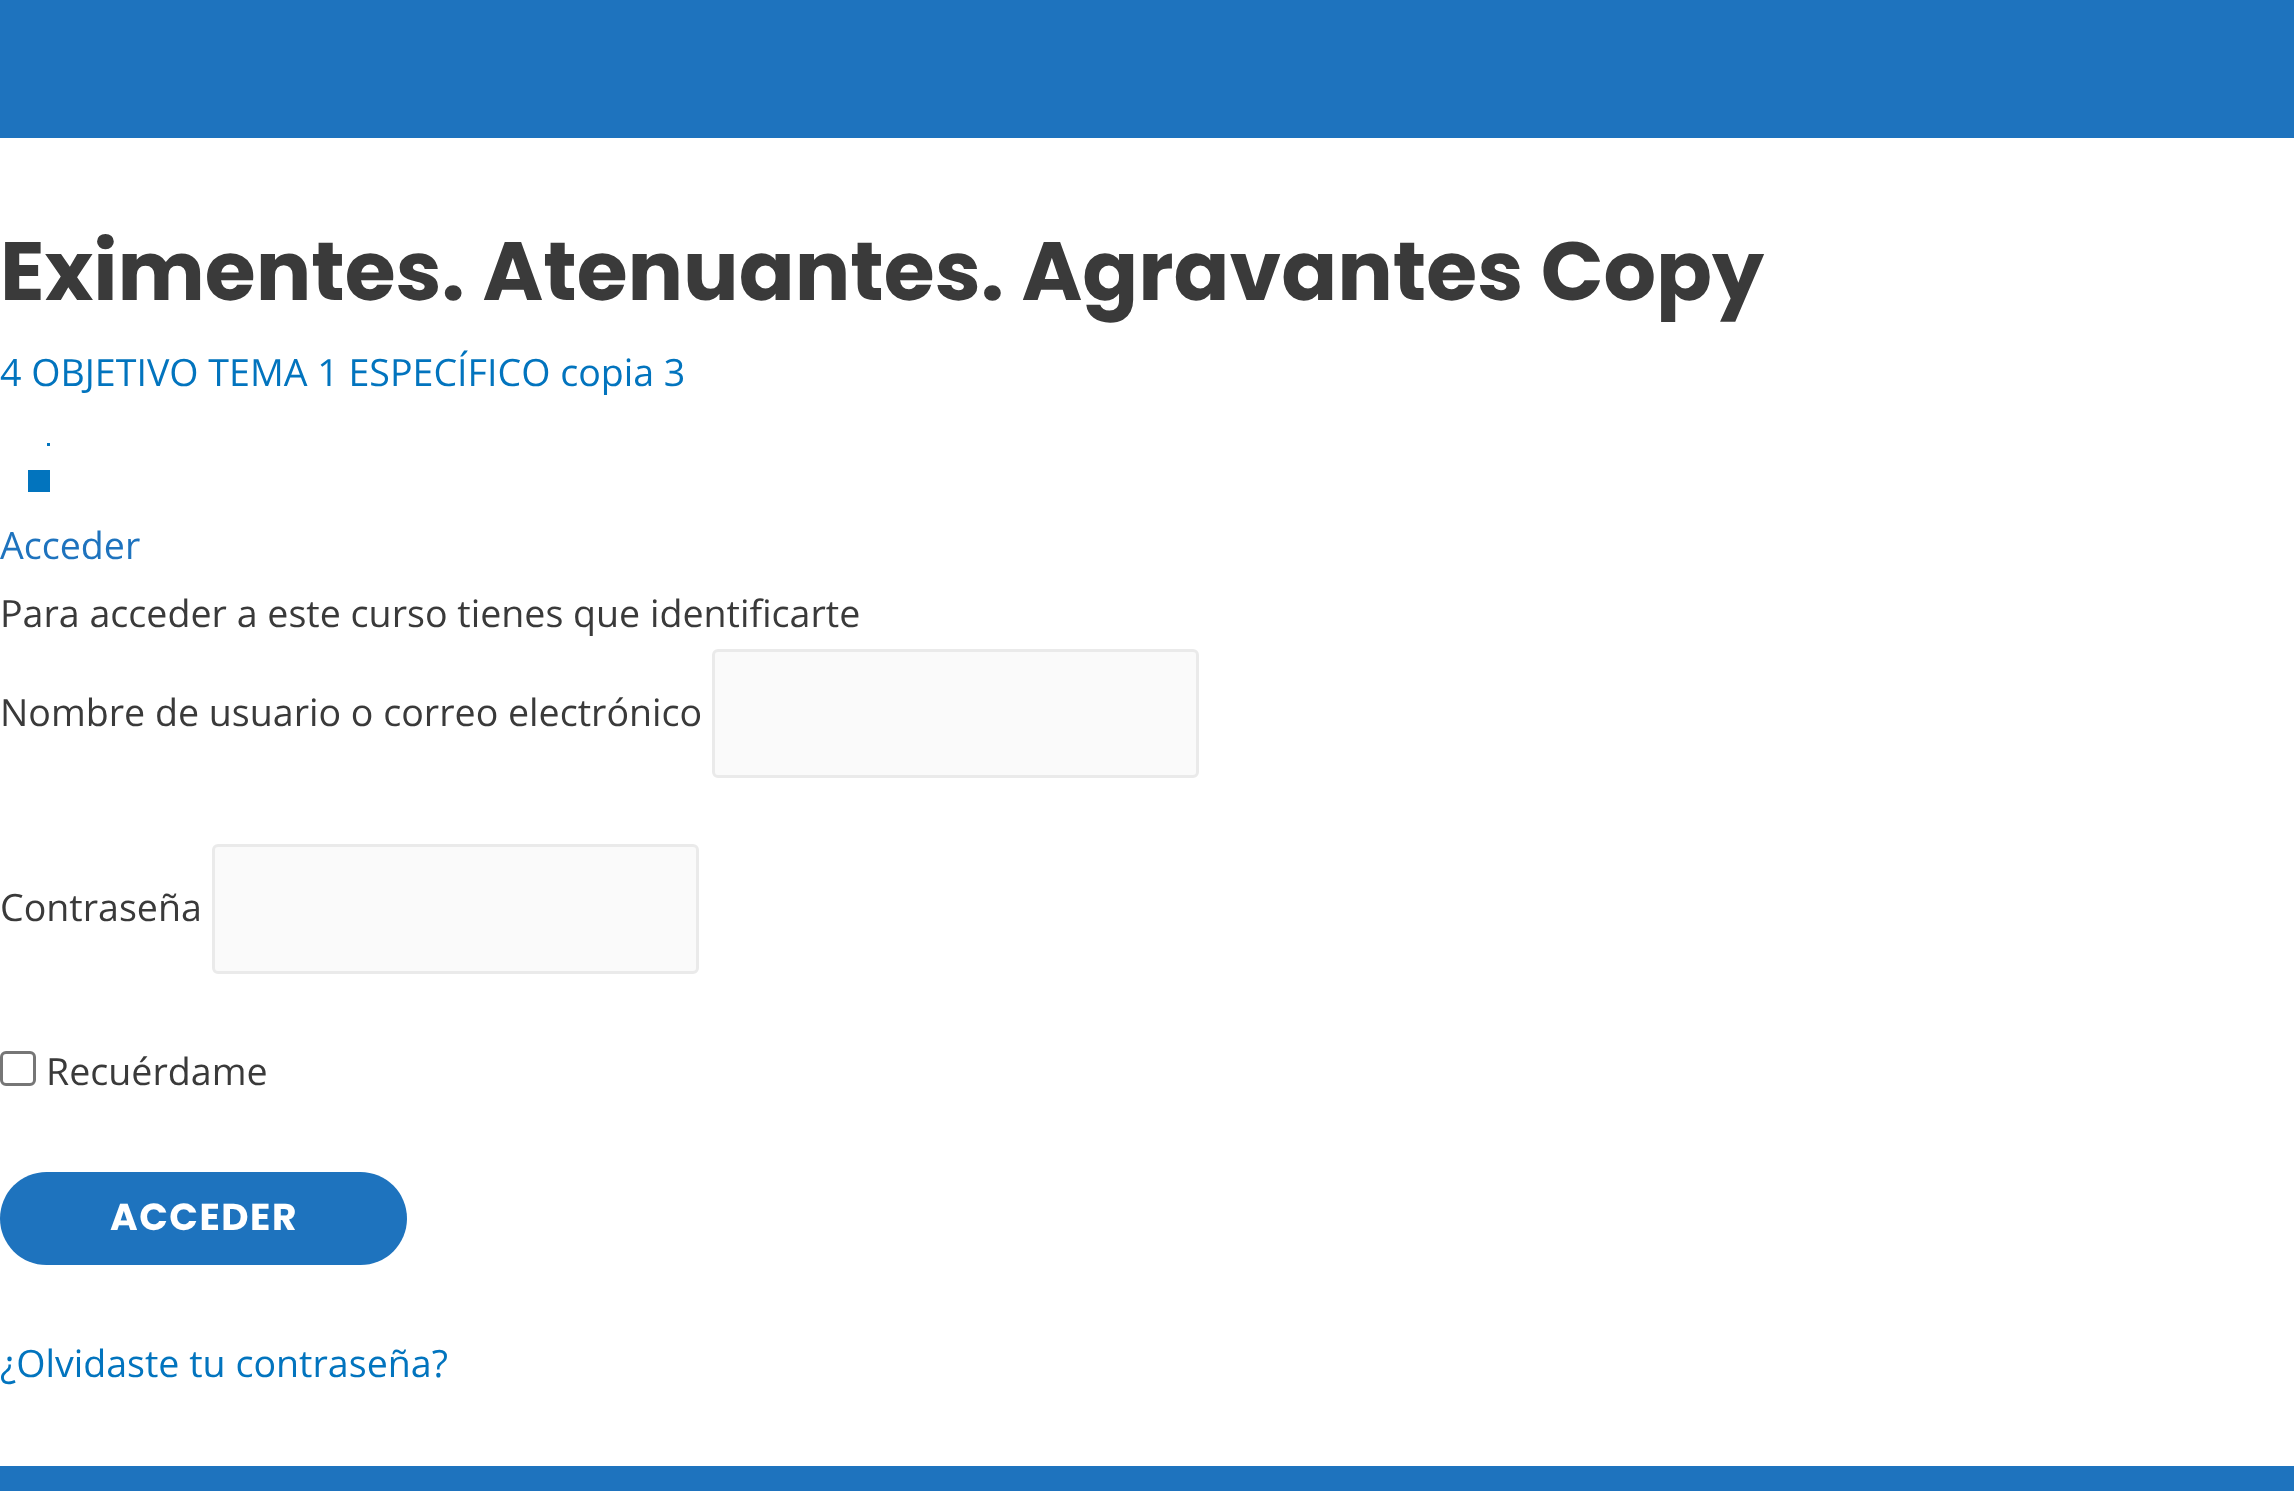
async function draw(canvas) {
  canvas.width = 2294
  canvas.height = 1491
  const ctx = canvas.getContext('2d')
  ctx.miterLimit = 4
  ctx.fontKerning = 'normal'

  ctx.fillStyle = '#fff'
  ctx.fillRect(0, 0, 2294, 1491)
  ctx.fillStyle = '#1e73be'
  ctx.fillRect(0, 0, 2294, 138)
  ctx.font = 'bold 82.5px Poppins'
  ctx.fillStyle = '#3a3a3a'
  ctx.fillText('Eximentes. Atenuantes. Agravantes Copy', 0, 300)
  ctx.font = '37.6px Open Sans'
  ctx.fillStyle = '#0274be'
  ctx.fillText('4 OBJETIVO TEMA 1 ESPECÍFICO copia 3', 0, 386)
  ctx.fillRect(47, 443, 3, 3)
  ctx.fillRect(28, 470, 22, 22)
  ctx.fillStyle = '#1e73be'
  ctx.fillText('Acceder', 0, 559)
  ctx.fillStyle = '#3a3a3a'
  ctx.fillText('Para acceder a este curso tienes que identificarte', 0, 627)
  ctx.fillText('Nombre de usuario o correo electrónico', 0, 726)
  ctx.fillStyle = '#fafafa'
  ctx.beginPath()
  ctx.roundRect(713.5, 650.5, 484, 126, 4.5)
  ctx.fill()
  ctx.strokeStyle = '#eaeaea'
  ctx.lineWidth = 3
  ctx.stroke()
  ctx.fillStyle = '#3a3a3a'
  ctx.fillText('Contraseña', 0, 921)
  ctx.fillStyle = '#fafafa'
  ctx.beginPath()
  ctx.roundRect(213.5, 845.5, 484, 127, 4.5)
  ctx.fill()
  ctx.stroke()
  ctx.beginPath()
  ctx.roundRect(1.5, 1052.5, 33, 32, 4.5)
  ctx.strokeStyle = '#767676'
  ctx.stroke()
  ctx.fillStyle = '#3a3a3a'
  ctx.fillText('Recuérdame', 46, 1085)
  ctx.fillStyle = '#1e73be'
  ctx.beginPath()
  ctx.roundRect(0, 1172, 407, 93, 46.5)
  ctx.fill()
  ctx.letterSpacing = '1.5px'
  ctx.font = 'bold 37.6px Poppins'
  ctx.fillStyle = '#fff'
  ctx.fillText('ACCEDER', 110, 1230)
  ctx.letterSpacing = '0px'
  ctx.font = '37.6px Open Sans'
  ctx.fillStyle = '#0274be'
  ctx.fillText('¿Olvidaste tu contraseña?', 0, 1377)
  ctx.fillStyle = '#1e73be'
  ctx.fillRect(0, 1466, 2294, 25)
}

draw(document.querySelector('canvas'))
